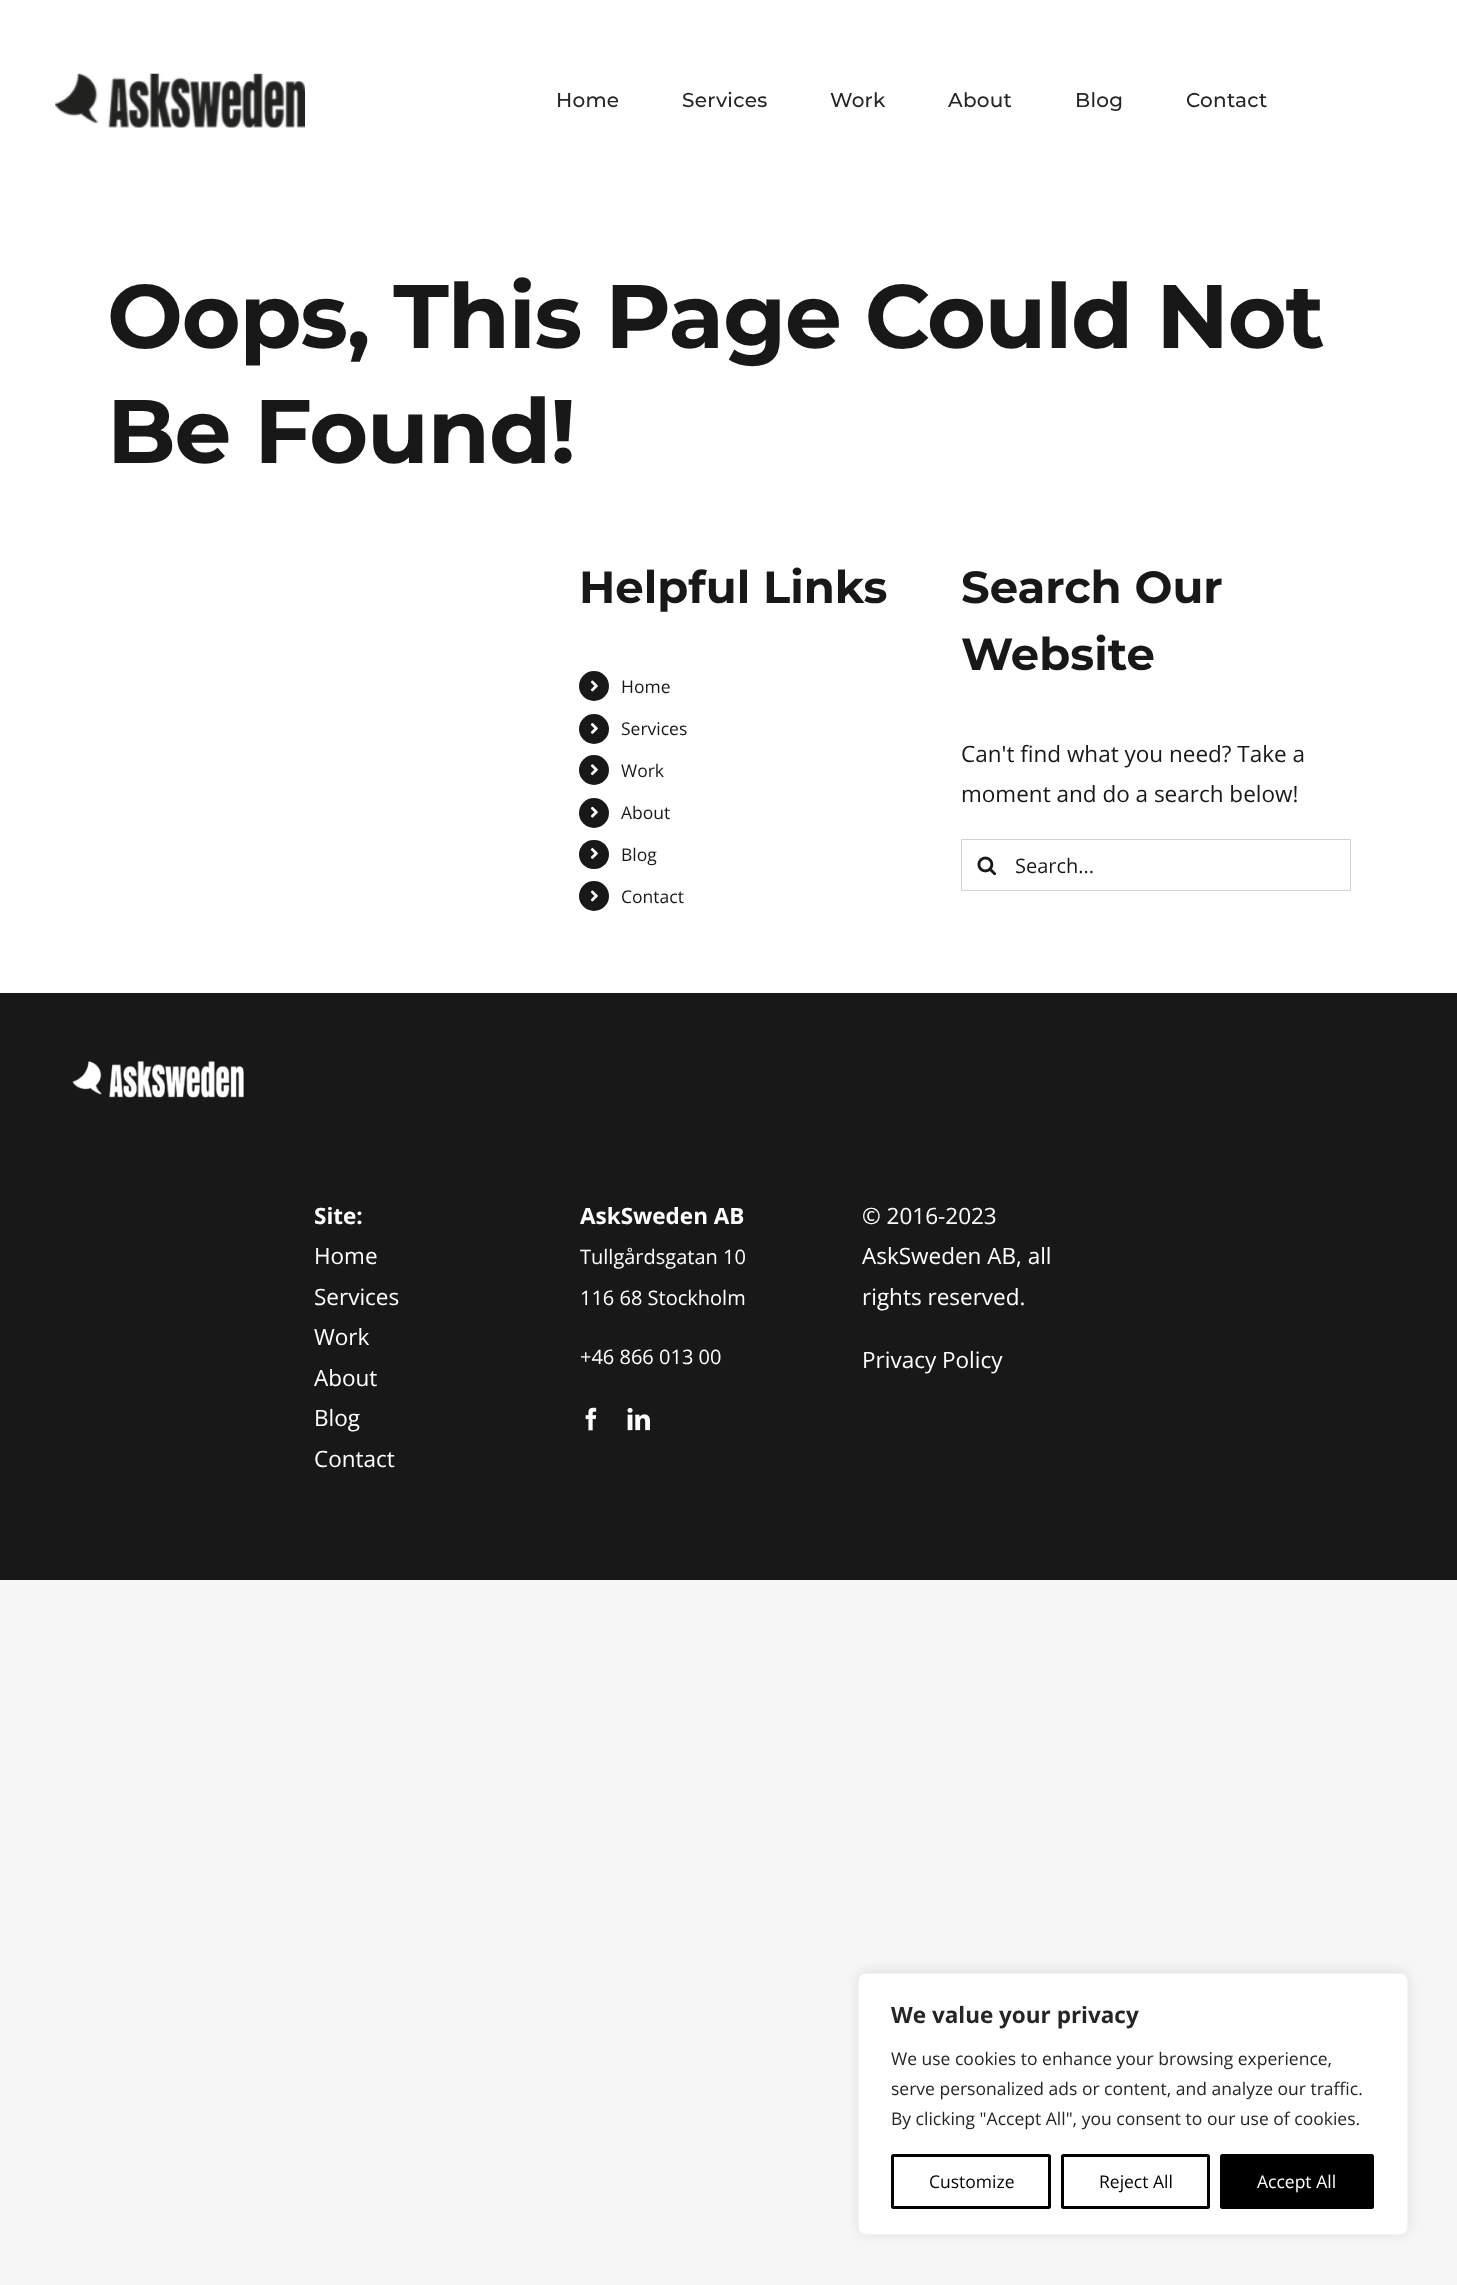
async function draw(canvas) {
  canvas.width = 1457
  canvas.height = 2285
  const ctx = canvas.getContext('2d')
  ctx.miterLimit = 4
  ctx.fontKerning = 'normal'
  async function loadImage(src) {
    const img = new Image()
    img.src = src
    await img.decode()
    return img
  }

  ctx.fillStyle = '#f6f6f6'
  ctx.fillRect(0, 0, 1457, 2285)
  ctx.fillStyle = '#fff'
  ctx.fillRect(0, 0, 1457, 993)
  ctx.drawImage(await loadImage('image0.png'), 55, 73, 250, 55)
  ctx.letterSpacing = '0.25px'
  ctx.font = '500 20px Montserrat'
  ctx.fillStyle = '#252525'
  ctx.fillText('Home', 556, 107)
  ctx.fillText('Services', 682, 107)
  ctx.fillText('Work', 830, 107)
  ctx.fillText('About', 948, 107)
  ctx.fillText('Blog', 1075, 107)
  ctx.fillText('Contact', 1186, 107)
  ctx.letterSpacing = '-1.25px'
  ctx.font = 'bold 90px Montserrat'
  ctx.fillStyle = '#181818'
  ctx.fillText('Oops, This Page Could Not', 107, 348)
  ctx.fillText('Be Found!', 107, 463)
  ctx.letterSpacing = '0px'
  ctx.font = 'bold 45px Montserrat'
  ctx.fillText('Helpful Links', 579, 603)
  ctx.beginPath()
  ctx.arc(594, 686, 15, 0, 2 * Math.PI)
  ctx.fill()
  ctx.drawImage(await loadImage('image1.png'), 590, 680, 8, 12)
  ctx.font = '17.5px Open Sans'
  ctx.fillText('Home', 621, 693)
  ctx.beginPath()
  ctx.arc(594, 729, 15, 0, 2 * Math.PI)
  ctx.fill()
  ctx.drawImage(await loadImage('image2.png'), 590, 723, 8, 11)
  ctx.fillText('Services', 621, 735)
  ctx.beginPath()
  ctx.arc(594, 770, 15, 0, 2 * Math.PI)
  ctx.fill()
  ctx.drawImage(await loadImage('image3.png'), 590, 764, 8, 12)
  ctx.fillText('Work', 621, 777)
  ctx.beginPath()
  ctx.arc(594, 813, 15, 0, 2 * Math.PI)
  ctx.fill()
  ctx.drawImage(await loadImage('image4.png'), 590, 806, 8, 12)
  ctx.fillText('About', 621, 819)
  ctx.beginPath()
  ctx.roundRect(579, 840, 30, 29, 14.5)
  ctx.fill()
  ctx.drawImage(await loadImage('image2.png'), 590, 848, 8, 11)
  ctx.fillText('Blog', 621, 861)
  ctx.beginPath()
  ctx.arc(594, 896, 15, 0, 2 * Math.PI)
  ctx.fill()
  ctx.drawImage(await loadImage('image1.png'), 590, 890, 8, 12)
  ctx.fillText('Contact', 621, 903)
  ctx.font = 'bold 45px Montserrat'
  ctx.fillText('Search Our', 961, 603)
  ctx.fillText('Website', 961, 670)
  ctx.font = '22.5px Open Sans'
  ctx.fillText('Can\'t find what you need? Take a', 961, 762)
  ctx.fillText('moment and do a search below!', 961, 802)
  ctx.beginPath()
  ctx.roundRect(961.5, 839.5, 389, 51, 0.5)
  ctx.strokeStyle = '#d1d1d1'
  ctx.stroke()
  ctx.drawImage(await loadImage('image5.png'), 977, 856, 20, 20)
  ctx.font = '20px Open Sans'
  ctx.fillText('Search...', 1015, 873)
  ctx.fillRect(0, 993, 1457, 587)
  ctx.drawImage(await loadImage('image6.png'), 72, 1061, 172, 37)
  ctx.font = 'bold 22.5px Open Sans'
  ctx.fillStyle = '#fff'
  ctx.fillText('Site:', 314, 1224)
  ctx.font = '22.5px Open Sans'
  ctx.fillText('Home', 314, 1264)
  ctx.fillText('Services', 314, 1305)
  ctx.fillText('Work', 314, 1345)
  ctx.fillText('About', 314, 1386)
  ctx.fillText('Blog', 314, 1426)
  ctx.fillText('Contact', 314, 1467)
  ctx.font = 'bold 22.5px Open Sans'
  ctx.fillText('AskSweden AB', 580, 1224)
  ctx.font = '20px Open Sans'
  ctx.fillText('Tullgårdsgatan 10', 580, 1264)
  ctx.fillText('116 68 Stockholm', 580, 1305)
  ctx.fillText('+46 866 013 00', 580, 1364)
  ctx.drawImage(await loadImage('image7.png'), 585, 1407, 12, 24)
  ctx.drawImage(await loadImage('image8.png'), 627, 1408, 23, 23)
  ctx.font = '22.5px Open Sans'
  ctx.fillText('© 2016-2023', 862, 1224)
  ctx.fillText('AskSweden AB, all', 862, 1264)
  ctx.fillText('rights reserved.', 862, 1305)
  ctx.fillText('Privacy Policy', 862, 1368)
  ctx.fillStyle = '#acabab4d'
  ctx.filter = 'blur(6px)'
  ctx.beginPath()
  ctx.roundRect(858, 1971, 550, 263, 8)
  ctx.fill()
  ctx.filter = 'none'
  ctx.fillStyle = '#fff'
  ctx.beginPath()
  ctx.roundRect(858.5, 1973.5, 549, 261, 7.5)
  ctx.fill()
  ctx.strokeStyle = '#f4f4f4'
  ctx.stroke()
  ctx.font = 'bold 22.5px Open Sans'
  ctx.fillStyle = '#252525'
  ctx.fillText('We value your privacy', 891, 2023)
  ctx.font = '17.5px Open Sans'
  ctx.fillText('We use cookies to enhance your browsing experience,', 891, 2065)
  ctx.fillText('serve personalized ads or content, and analyze our traffic.', 891, 2095)
  ctx.fillText('By clicking "Accept All", you consent to our use of cookies.', 891, 2125)
  ctx.beginPath()
  ctx.roundRect(892.5, 2155.5, 157, 52, 1)
  ctx.strokeStyle = '#000'
  ctx.lineWidth = 3
  ctx.stroke()
  ctx.fillStyle = '#000'
  ctx.fillText('Customize', 929, 2188)
  ctx.beginPath()
  ctx.roundRect(1062.5, 2155.5, 146, 52, 1)
  ctx.stroke()
  ctx.fillText('Reject All', 1099, 2188)
  ctx.beginPath()
  ctx.roundRect(1221.5, 2155.5, 151, 52, 1)
  ctx.fill()
  ctx.stroke()
  ctx.fillStyle = '#fff'
  ctx.fillText('Accept All', 1257, 2188)
}

draw(document.querySelector('canvas'))
